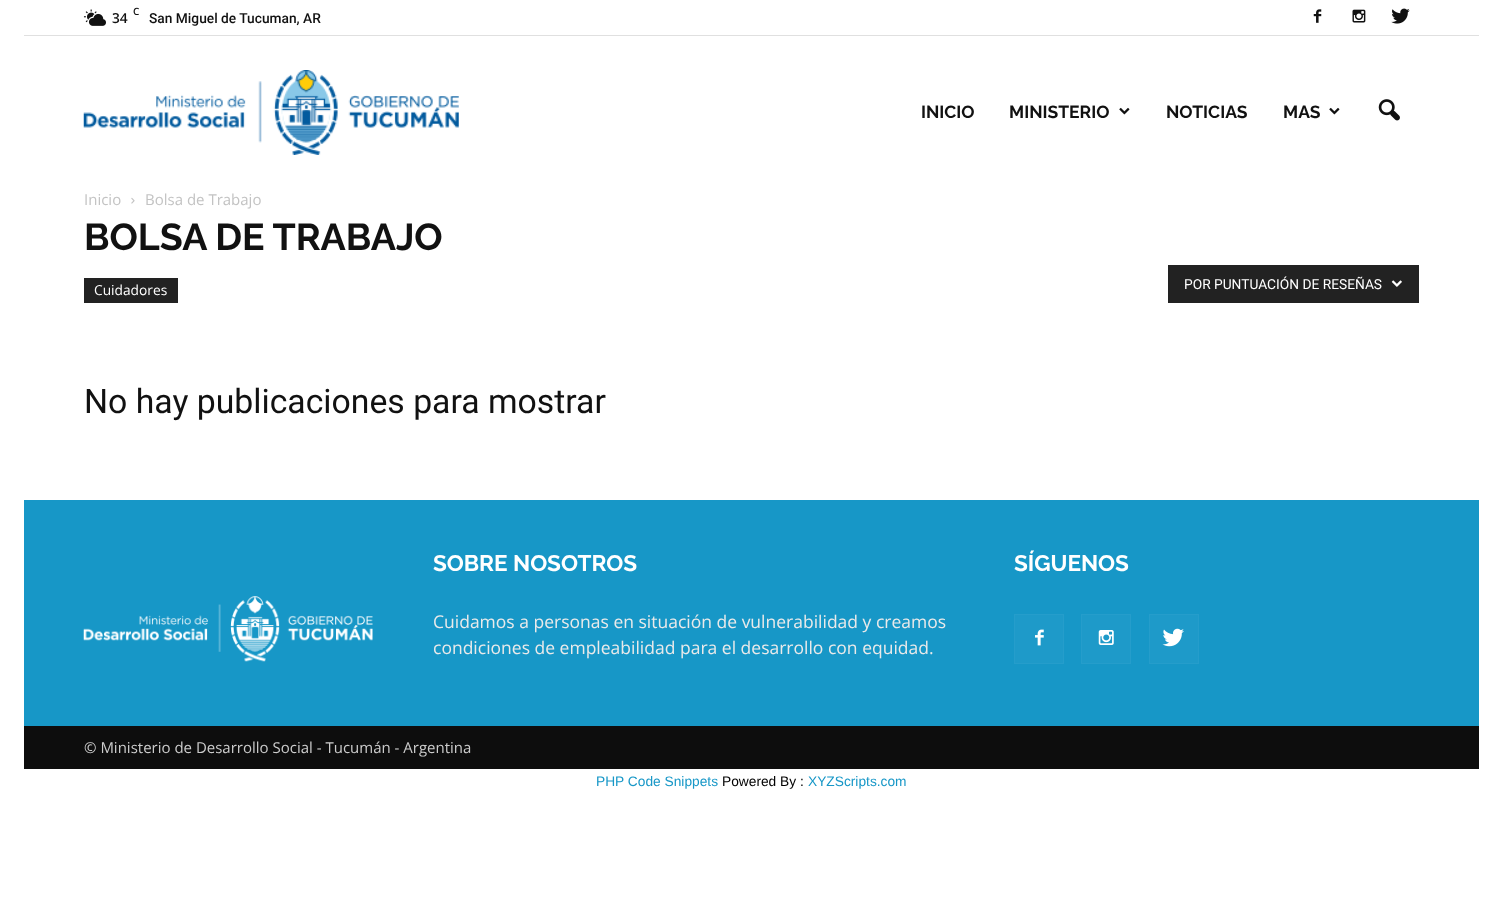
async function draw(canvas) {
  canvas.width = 1502
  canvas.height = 908
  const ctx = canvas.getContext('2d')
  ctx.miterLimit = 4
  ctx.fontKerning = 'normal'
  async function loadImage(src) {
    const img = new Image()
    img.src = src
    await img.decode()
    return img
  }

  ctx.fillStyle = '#fff'
  ctx.fillRect(0, 0, 1502, 908)
  ctx.fillStyle = '#e0e0e0'
  ctx.fillRect(24, 35, 1455, 1)
  ctx.drawImage(await loadImage('image0.png'), 83, 9, 23, 17)
  ctx.font = '600 10px Open Sans'
  ctx.fillStyle = '#111'
  ctx.fillText('C', 133, 15)
  ctx.font = '600 13.75px Open Sans'
  ctx.fillText('34', 112, 23)
  ctx.font = '500 13.75px Roboto'
  ctx.fillText('San Miguel de Tucuman, AR', 149, 23)
  ctx.drawImage(await loadImage('image1.png'), 1313, 9, 9, 14)
  ctx.drawImage(await loadImage('image2.png'), 1352, 9, 14, 14)
  ctx.drawImage(await loadImage('image3.png'), 1391, 8, 19, 16)
  ctx.drawImage(await loadImage('image4.png'), 83, 70, 376, 85)
  ctx.font = 'bold 17.5px Raleway'
  ctx.fillText('INICIO', 921, 118)
  ctx.fillText('MINISTERIO', 1009, 118)
  ctx.drawImage(await loadImage('image5.png'), 1119, 107, 11, 8)
  ctx.fillText('NOTICIAS', 1166, 118)
  ctx.fillText('MAS', 1283, 118)
  ctx.drawImage(await loadImage('image5.png'), 1329, 107, 11, 8)
  ctx.drawImage(await loadImage('image6.png'), 1378, 99, 22, 22)
  ctx.font = '15px Open Sans'
  ctx.fillStyle = '#c3c3c3'
  ctx.fillText('Inicio', 84, 205)
  ctx.drawImage(await loadImage('image7.png'), 131, 197, 4, 7)
  ctx.fillText('Bolsa de Trabajo', 145, 205)
  ctx.font = 'bold 37.5px Raleway'
  ctx.fillStyle = '#111'
  ctx.fillText('BOLSA DE TRABAJO', 84, 250)
  ctx.fillStyle = '#222'
  ctx.fillRect(84, 278, 94, 25)
  ctx.font = '13.75px Open Sans'
  ctx.fillStyle = '#fff'
  ctx.fillText('Cuidadores', 94, 295)
  ctx.fillStyle = '#222'
  ctx.fillRect(1168, 265, 251, 38)
  ctx.font = '13.75px Roboto'
  ctx.fillStyle = '#fff'
  ctx.fillText('POR PUNTUACIÓN DE RESEÑAS', 1184, 289)
  ctx.drawImage(await loadImage('image8.png'), 1391, 280, 11, 7)
  ctx.font = '33.75px Roboto'
  ctx.fillStyle = '#111'
  ctx.fillText('No hay publicaciones para mostrar', 84, 413)
  ctx.fillStyle = '#1797c7'
  ctx.fillRect(24, 500, 1455, 226)
  ctx.drawImage(await loadImage('image9.png'), 83, 596, 290, 66)
  ctx.font = 'bold 22.5px Raleway'
  ctx.fillStyle = '#fff'
  ctx.fillText('SOBRE NOSOTROS', 433, 571)
  ctx.font = '17.5px Open Sans'
  ctx.fillStyle = '#eaeaea'
  ctx.fillText('Cuidamos a personas en situación de vulnerabilidad y creamos', 433, 628)
  ctx.fillText('condiciones de empleabilidad para el desarrollo con equidad.', 433, 654)
  ctx.font = 'bold 22.5px Raleway'
  ctx.fillStyle = '#fff'
  ctx.fillText('SÍGUENOS', 1014, 571)
  ctx.fillStyle = '#1e9ac9'
  ctx.fillRect(1015, 615, 48, 48)
  ctx.drawImage(await loadImage('image10.png'), 1035, 629, 9, 17)
  ctx.strokeStyle = '#259dcb'
  ctx.strokeRect(1014.5, 614.5, 49, 49)
  ctx.fillRect(1082, 615, 48, 48)
  ctx.drawImage(await loadImage('image11.png'), 1098, 630, 16, 15)
  ctx.strokeRect(1081.5, 614.5, 49, 49)
  ctx.fillRect(1150, 615, 48, 48)
  ctx.drawImage(await loadImage('image12.png'), 1162, 628, 22, 19)
  ctx.strokeRect(1149.5, 614.5, 49, 49)
  ctx.fillStyle = '#0d0d0d'
  ctx.fillRect(24, 726, 1455, 43)
  ctx.font = '15px Open Sans'
  ctx.fillStyle = '#ccc'
  ctx.fillText('© Ministerio de Desarrollo Social - Tucumán - Argentina', 84, 753)
  ctx.font = '13.75px Liberation Sans'
  ctx.fillStyle = '#1797c7'
  ctx.fillText('PHP Code Snippets', 596, 786)
  ctx.fillStyle = '#000'
  ctx.fillText('Powered By :', 722, 786)
  ctx.fillStyle = '#1797c7'
  ctx.fillText('XYZScripts.com', 808, 786)
}

draw(document.querySelector('canvas'))
